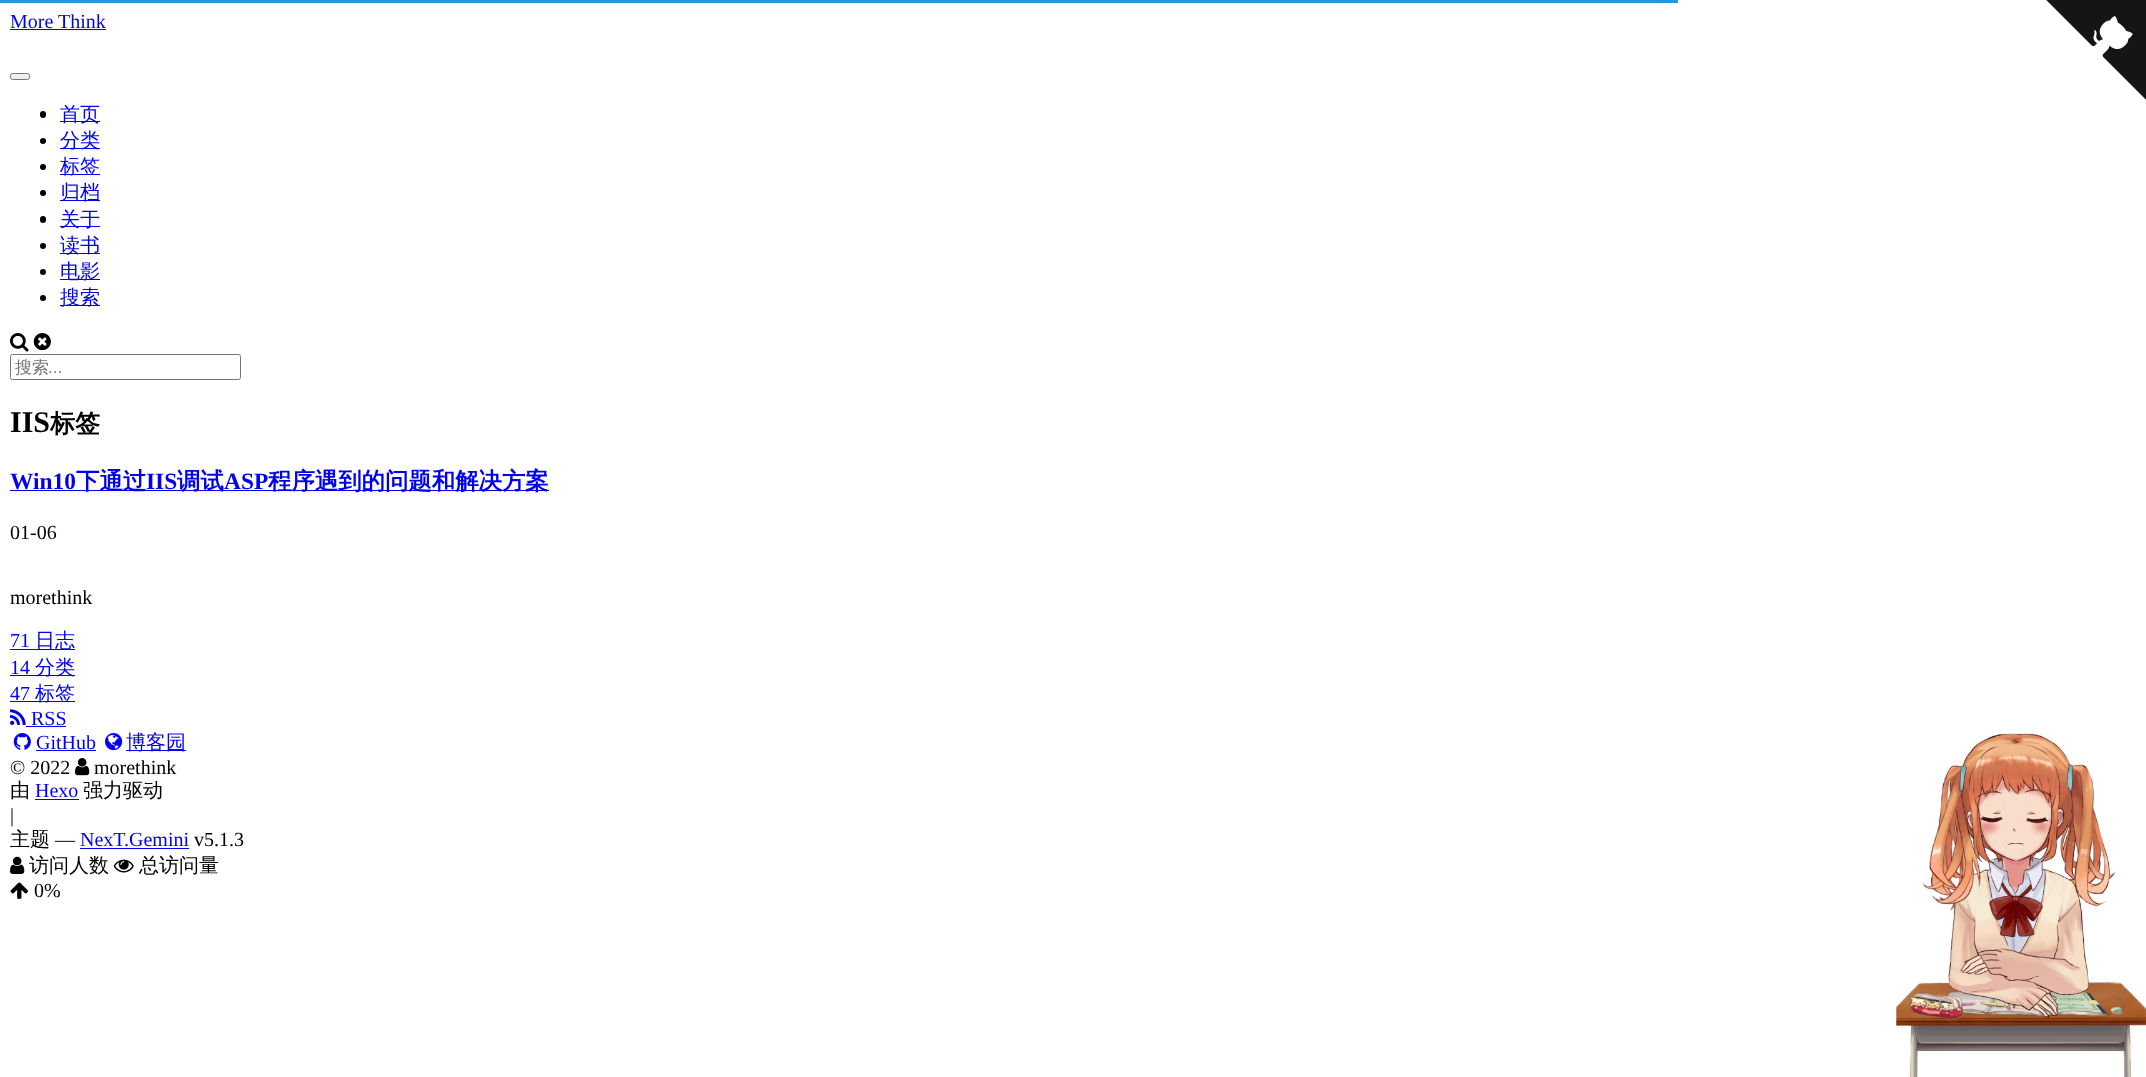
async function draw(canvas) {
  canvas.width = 2146
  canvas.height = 1077
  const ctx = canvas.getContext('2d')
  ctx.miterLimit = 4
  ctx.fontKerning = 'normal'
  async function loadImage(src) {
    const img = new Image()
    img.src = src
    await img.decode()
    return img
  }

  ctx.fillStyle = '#fff'
  ctx.fillRect(0, 0, 2146, 1077)
  ctx.fillStyle = '#29d'
  ctx.fillRect(0, 0, 1678, 3)
  ctx.font = '20px Liberation Serif'
  ctx.fillStyle = '#00e'
  ctx.fillText('More Think', 10, 28)
  ctx.fillRect(10, 29, 96, 1)
  ctx.fillStyle = '#efefef'
  ctx.beginPath()
  ctx.roundRect(10.5, 73.5, 19, 6, 2)
  ctx.fill()
  ctx.strokeStyle = '#767676'
  ctx.stroke()
  ctx.fillStyle = '#000'
  ctx.beginPath()
  ctx.roundRect(40, 111, 6, 7, 3)
  ctx.fill()
  ctx.fillStyle = '#00e'
  ctx.fillRect(60, 121, 40, 1)
  ctx.font = '500 20px WenQuanYi Zen Hei'
  ctx.fillText('首页', 60, 121)
  ctx.fillStyle = '#000'
  ctx.beginPath()
  ctx.arc(43, 141, 3, 0, 2 * Math.PI)
  ctx.fill()
  ctx.fillStyle = '#00e'
  ctx.fillRect(60, 148, 40, 1)
  ctx.fillText('分类', 60, 147)
  ctx.fillStyle = '#000'
  ctx.beginPath()
  ctx.arc(43, 167, 3, 0, 2 * Math.PI)
  ctx.fill()
  ctx.fillStyle = '#00e'
  ctx.fillRect(60, 174, 40, 1)
  ctx.fillText('标签', 60, 173)
  ctx.fillStyle = '#000'
  ctx.beginPath()
  ctx.arc(43, 193, 3, 0, 2 * Math.PI)
  ctx.fill()
  ctx.fillStyle = '#00e'
  ctx.fillRect(60, 200, 40, 1)
  ctx.fillText('归档', 60, 199)
  ctx.fillStyle = '#000'
  ctx.beginPath()
  ctx.roundRect(40, 216, 6, 7, 3)
  ctx.fill()
  ctx.fillStyle = '#00e'
  ctx.fillRect(60, 226, 40, 1)
  ctx.fillText('关于', 60, 226)
  ctx.fillStyle = '#000'
  ctx.beginPath()
  ctx.arc(43, 246, 3, 0, 2 * Math.PI)
  ctx.fill()
  ctx.fillStyle = '#00e'
  ctx.fillRect(60, 253, 40, 1)
  ctx.fillText('读书', 60, 252)
  ctx.fillStyle = '#000'
  ctx.beginPath()
  ctx.arc(43, 272, 3, 0, 2 * Math.PI)
  ctx.fill()
  ctx.fillStyle = '#00e'
  ctx.fillRect(60, 279, 40, 1)
  ctx.fillText('电影', 60, 278)
  ctx.fillStyle = '#000'
  ctx.beginPath()
  ctx.arc(43, 298, 3, 0, 2 * Math.PI)
  ctx.fill()
  ctx.fillStyle = '#00e'
  ctx.fillRect(60, 305, 40, 1)
  ctx.fillText('搜索', 60, 304)
  ctx.drawImage(await loadImage('image0.png'), 10, 333, 19, 19)
  ctx.drawImage(await loadImage('image1.png'), 33, 333, 18, 18)
  ctx.beginPath()
  ctx.roundRect(10.5, 354.5, 230, 25, 2)
  ctx.stroke()
  ctx.font = '500 17px WenQuanYi Zen Hei'
  ctx.fillStyle = '#757575'
  ctx.fillText('搜索', 15, 373)
  ctx.font = '17px Liberation Sans'
  ctx.fillText('...', 48, 373)
  ctx.drawImage(await loadImage('image2.png'), 2046, 0, 100, 100)
  ctx.font = 'bold 30px Liberation Serif'
  ctx.fillStyle = '#000'
  ctx.fillText('IIS', 10, 432)
  ctx.font = 'bold 25px WenQuanYi Zen Hei'
  ctx.fillText('标签', 50, 432)
  ctx.font = 'bold 23.4px Liberation Serif'
  ctx.fillStyle = '#00e'
  ctx.fillText('Win10', 10, 489)
  ctx.fillRect(10, 490, 539, 1)
  ctx.font = 'bold 23.4px WenQuanYi Zen Hei'
  ctx.fillText('下通过', 76, 489)
  ctx.font = 'bold 23.4px Liberation Serif'
  ctx.fillText('IIS', 146, 489)
  ctx.font = 'bold 23.4px WenQuanYi Zen Hei'
  ctx.fillText('调试', 177, 489)
  ctx.font = 'bold 23.4px Liberation Serif'
  ctx.fillText('ASP', 224, 489)
  ctx.font = 'bold 23.4px WenQuanYi Zen Hei'
  ctx.fillText('程序遇到的问题和解决方案', 268, 489)
  ctx.font = '20px Liberation Serif'
  ctx.fillStyle = '#000'
  ctx.fillText('01-06', 10, 539)
  ctx.fillText('morethink', 10, 604)
  ctx.fillStyle = '#00e'
  ctx.fillText('71', 10, 647)
  ctx.fillRect(10, 649, 65, 1)
  ctx.font = '500 20px WenQuanYi Zen Hei'
  ctx.fillText('日志', 35, 647)
  ctx.font = '20px Liberation Serif'
  ctx.fillText('14', 10, 674)
  ctx.fillRect(10, 675, 65, 1)
  ctx.font = '500 20px WenQuanYi Zen Hei'
  ctx.fillText('分类', 35, 674)
  ctx.font = '20px Liberation Serif'
  ctx.fillText('47', 10, 700)
  ctx.fillRect(10, 701, 65, 1)
  ctx.font = '500 20px WenQuanYi Zen Hei'
  ctx.fillText('标签', 35, 700)
  ctx.drawImage(await loadImage('image3.png'), 10, 709, 16, 16)
  ctx.font = '20px Liberation Serif'
  ctx.fillText('RSS', 31, 725)
  ctx.fillRect(26, 726, 40, 1)
  ctx.drawImage(await loadImage('image4.png'), 13, 733, 18, 17)
  ctx.fillText('GitHub', 36, 749)
  ctx.fillRect(36, 750, 60, 1)
  ctx.drawImage(await loadImage('image5.png'), 105, 733, 18, 18)
  ctx.fillRect(126, 750, 60, 1)
  ctx.font = '500 20px WenQuanYi Zen Hei'
  ctx.fillText('博客园', 126, 749)
  ctx.font = '20px Liberation Serif'
  ctx.fillStyle = '#000'
  ctx.fillText('© 2022', 10, 774)
  ctx.drawImage(await loadImage('image6.png'), 75, 758, 15, 18)
  ctx.fillText('morethink', 94, 774)
  ctx.font = '500 20px WenQuanYi Zen Hei'
  ctx.fillText('由', 10, 797)
  ctx.font = '20px Liberation Serif'
  ctx.fillStyle = '#00e'
  ctx.fillText('Hexo', 35, 797)
  ctx.fillRect(35, 799, 44, 1)
  ctx.font = '500 20px WenQuanYi Zen Hei'
  ctx.fillStyle = '#000'
  ctx.fillText('强力驱动', 83, 797)
  ctx.font = '20px Liberation Serif'
  ctx.fillText('|', 10, 822)
  ctx.font = '500 20px WenQuanYi Zen Hei'
  ctx.fillText('主题', 10, 846)
  ctx.font = '20px Liberation Serif'
  ctx.fillText('—', 55, 846)
  ctx.fillStyle = '#00e'
  ctx.fillText('NexT.Gemini', 80, 846)
  ctx.fillRect(80, 848, 109, 1)
  ctx.fillStyle = '#000'
  ctx.fillText('v5.1.3', 194, 846)
  ctx.drawImage(await loadImage('image7.png'), 10, 856, 15, 18)
  ctx.font = '500 20px WenQuanYi Zen Hei'
  ctx.fillText('访问人数', 29, 872)
  ctx.drawImage(await loadImage('image8.png'), 113, 859, 21, 14)
  ctx.fillText('总访问量', 139, 872)
  ctx.drawImage(await loadImage('image9.png'), 10, 882, 18, 17)
  ctx.font = '20px Liberation Serif'
  ctx.fillText('0%', 34, 897)
  ctx.drawImage(await loadImage('image10.png'), 1896, 733, 250, 344)
}

draw(document.querySelector('canvas'))
